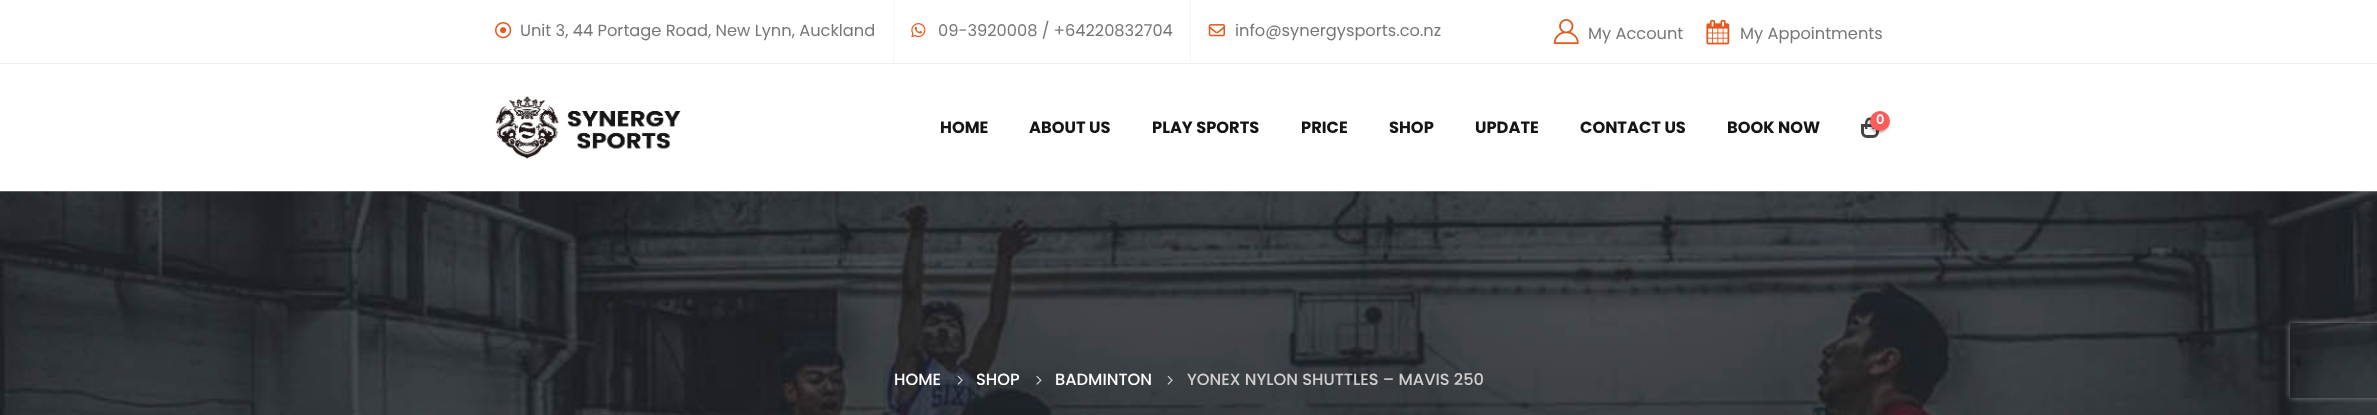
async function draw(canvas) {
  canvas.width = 2377
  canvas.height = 415
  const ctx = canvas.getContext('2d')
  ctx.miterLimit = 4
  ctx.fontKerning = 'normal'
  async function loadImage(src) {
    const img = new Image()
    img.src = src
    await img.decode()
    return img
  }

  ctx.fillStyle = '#fff'
  ctx.fillRect(0, 0, 2377, 415)
  ctx.fillStyle = '#ededed'
  ctx.fillRect(0, 63, 2377, 1)
  ctx.drawImage(await loadImage('image0.png'), 495, 22, 17, 17)
  ctx.font = '16.25px Poppins'
  ctx.fillStyle = '#777'
  ctx.fillText('Unit 3, 44 Portage Road, New Lynn, Auckland', 520, 36)
  ctx.fillStyle = '#f5f5f5'
  ctx.fillRect(893, 0, 1, 63)
  ctx.drawImage(await loadImage('image1.png'), 911, 23, 15, 15)
  ctx.fillStyle = '#777'
  ctx.fillText('09-3920008 / +64220832704', 938, 36)
  ctx.fillStyle = '#f5f5f5'
  ctx.fillRect(1190, 0, 1, 63)
  ctx.drawImage(await loadImage('image2.png'), 1208, 24, 17, 13)
  ctx.fillStyle = '#777'
  ctx.fillText('info@synergysports.co.nz', 1235, 36)
  ctx.drawImage(await loadImage('image3.png'), 1553, 19, 26, 26)
  ctx.fillText('My Account', 1588, 39)
  ctx.drawImage(await loadImage('image4.png'), 1706, 19, 24, 26)
  ctx.fillText('My Appointments', 1740, 39)
  ctx.drawImage(await loadImage('image5.png'), 495, 96, 186, 63)
  ctx.beginPath()
  ctx.roundRect(1862.5, 125.5, 15, 11, [0, 0, 4.5, 4.5])
  ctx.strokeStyle = '#444'
  ctx.lineWidth = 3
  ctx.stroke()
  ctx.fillStyle = '#444'
  ctx.beginPath()
  ctx.moveTo(1870, 117.5)
  ctx.bezierCurveTo(1876, 117.5, 1875, 124.5, 1875, 129)
  ctx.lineTo(1865, 129)
  ctx.bezierCurveTo(1865, 124.5, 1864, 117.5, 1870, 117.5)
  ctx.closePath()
  ctx.moveTo(1870, 120)
  ctx.bezierCurveTo(1873.5, 120, 1872.5, 126.5, 1872.5, 129)
  ctx.lineTo(1867.5, 129)
  ctx.bezierCurveTo(1867.5, 126.5, 1866.5, 120, 1870, 120)
  ctx.closePath()
  ctx.fill('evenodd')
  ctx.fillStyle = '#0000004d'
  ctx.filter = 'blur(1px)'
  ctx.beginPath()
  ctx.roundRect(1869, 113, 20, 20, 10)
  ctx.fill()
  ctx.filter = 'none'
  ctx.fillStyle = '#ff5b5b'
  ctx.beginPath()
  ctx.arc(1880, 121, 10, 0, 2 * Math.PI)
  ctx.fill()
  ctx.font = '600 13px Poppins'
  ctx.fillStyle = '#fff'
  ctx.fillText('0', 1876, 124)
  ctx.font = 'bold 16.25px Poppins'
  ctx.fillStyle = '#151515'
  ctx.fillText('HOME', 940, 133)
  ctx.fillText('ABOUT US', 1029, 133)
  ctx.fillText('PLAY SPORTS', 1152, 133)
  ctx.fillText('PRICE', 1301, 133)
  ctx.fillText('SHOP', 1389, 133)
  ctx.fillText('UPDATE', 1475, 133)
  ctx.fillText('CONTACT US', 1580, 133)
  ctx.fillText('BOOK NOW', 1727, 133)
  ctx.drawImage(await loadImage('image6.png'), 0, 191, 2377, 224)
  ctx.font = '500 16.25px Poppins'
  ctx.fillStyle = '#fff'
  ctx.fillText('HOME', 894, 385)
  ctx.drawImage(await loadImage('image7.png'), 957, 375, 6, 10)
  ctx.fillText('SHOP', 976, 385)
  ctx.drawImage(await loadImage('image8.png'), 1036, 375, 6, 10)
  ctx.fillText('BADMINTON', 1055, 385)
  ctx.drawImage(await loadImage('image9.png'), 1167, 375, 6, 10)
  ctx.fillStyle = '#d0cece'
  ctx.fillText('YONEX NYLON SHUTTLES – MAVIS 250', 1187, 385)
  ctx.save()
  ctx.beginPath()
  ctx.moveTo(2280, 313)
  ctx.lineTo(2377, 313)
  ctx.lineTo(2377, 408)
  ctx.lineTo(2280, 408)
  ctx.closePath()
  ctx.moveTo(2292.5, 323)
  ctx.lineTo(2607.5, 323)
  ctx.bezierCurveTo(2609, 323, 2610, 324, 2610, 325.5)
  ctx.lineTo(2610, 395.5)
  ctx.bezierCurveTo(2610, 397, 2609, 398, 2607.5, 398)
  ctx.lineTo(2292.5, 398)
  ctx.bezierCurveTo(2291, 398, 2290, 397, 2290, 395.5)
  ctx.lineTo(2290, 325.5)
  ctx.bezierCurveTo(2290, 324, 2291, 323, 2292.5, 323)
  ctx.closePath()
  ctx.clip('evenodd')
  ctx.fillStyle = '#808080'
  ctx.filter = 'blur(3px)'
  ctx.beginPath()
  ctx.roundRect(2290, 323, 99, 75, 2.5)
  ctx.fill()
  ctx.filter = 'none'
  ctx.restore()
}

draw(document.querySelector('canvas'))
